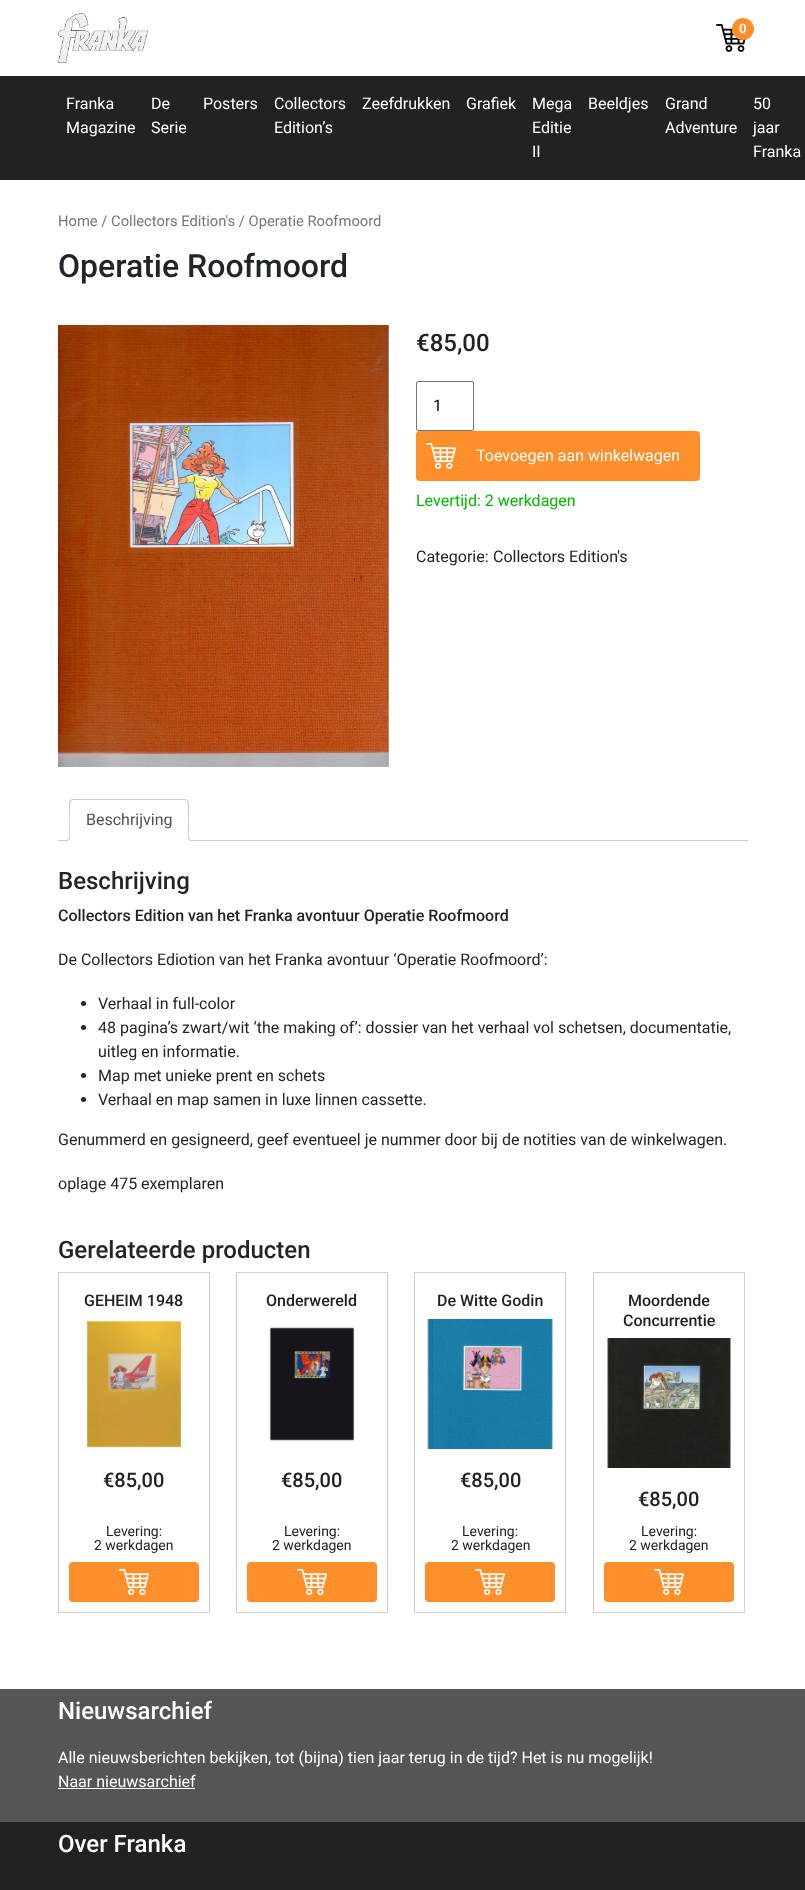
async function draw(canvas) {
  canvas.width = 805
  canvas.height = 1890
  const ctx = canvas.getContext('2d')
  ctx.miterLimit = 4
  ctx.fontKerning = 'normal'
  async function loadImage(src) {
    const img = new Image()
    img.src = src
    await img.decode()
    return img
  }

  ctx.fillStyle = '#fff'
  ctx.fillRect(0, 0, 805, 1890)
  ctx.drawImage(await loadImage('image0.png'), 58, 13, 90, 50)
  ctx.drawImage(await loadImage('image1.png'), 716, 24, 30, 28)
  ctx.fillStyle = '#ff8f2b'
  ctx.beginPath()
  ctx.arc(743, 29, 11, 0, 2 * Math.PI)
  ctx.fill()
  ctx.font = '600 13px Roboto'
  ctx.fillStyle = '#fff'
  ctx.fillText('0', 739, 33)
  ctx.fillStyle = '#222'
  ctx.fillRect(0, 76, 805, 104)
  ctx.font = '16px Roboto'
  ctx.fillStyle = '#fff'
  ctx.fillText('Franka', 66, 109)
  ctx.fillText('Magazine', 66, 133)
  ctx.fillText('De', 151, 109)
  ctx.fillText('Serie', 151, 133)
  ctx.fillText('Posters', 203, 109)
  ctx.fillText('Collectors', 274, 109)
  ctx.fillText('Edition’s', 274, 133)
  ctx.fillText('Zeefdrukken', 362, 109)
  ctx.fillText('Grafiek', 466, 109)
  ctx.fillText('Mega', 532, 109)
  ctx.fillText('Editie', 532, 133)
  ctx.fillText('II', 532, 157)
  ctx.fillText('Beeldjes', 588, 109)
  ctx.fillText('Grand', 665, 109)
  ctx.fillText('Adventure', 665, 133)
  ctx.fillText('50', 753, 109)
  ctx.fillText('jaar', 753, 133)
  ctx.fillText('Franka', 753, 157)
  ctx.font = '14.75px Roboto'
  ctx.fillStyle = '#767676'
  ctx.fillText('Home / Collectors Edition\'s / Operatie Roofmoord', 58, 226)
  ctx.font = '500 32px Roboto'
  ctx.fillStyle = '#212529'
  ctx.fillText('Operatie Roofmoord', 58, 277)
  ctx.drawImage(await loadImage('image2.png'), 58, 325, 331, 442)
  ctx.font = '500 24px Roboto'
  ctx.fillStyle = '#222'
  ctx.fillText('€85,00', 416, 351)
  ctx.beginPath()
  ctx.roundRect(416.5, 381.5, 57, 49, 1.5)
  ctx.strokeStyle = '#767676'
  ctx.stroke()
  ctx.font = '16px Roboto'
  ctx.fillStyle = '#000'
  ctx.fillText('1', 433, 411)
  ctx.fillStyle = '#ff8f2b'
  ctx.beginPath()
  ctx.roundRect(416, 431, 284, 50, 4)
  ctx.fill()
  ctx.drawImage(await loadImage('image3.png'), 426, 442, 30, 27)
  ctx.fillStyle = '#fff'
  ctx.fillText('Toevoegen aan winkelwagen', 476, 461)
  ctx.fillStyle = '#00b900'
  ctx.fillText('Levertijd: 2 werkdagen', 416, 506)
  ctx.fillStyle = '#212529'
  ctx.fillText('Categorie:', 416, 562)
  ctx.fillStyle = '#222'
  ctx.fillText('Collectors Edition\'s', 493, 562)
  ctx.fillStyle = '#cfc8d8'
  ctx.fillRect(58, 840, 690, 1)
  ctx.fillStyle = '#fff'
  ctx.beginPath()
  ctx.roundRect(69, 799, 120, 42, [4, 4, 0, 0])
  ctx.fill()
  ctx.fillStyle = '#cfc8d8'
  ctx.beginPath()
  ctx.moveTo(73, 799)
  ctx.lineTo(70, 800)
  ctx.lineTo(71, 801)
  ctx.lineTo(73, 800)
  ctx.lineTo(185, 800)
  ctx.lineTo(187, 801)
  ctx.lineTo(188, 800)
  ctx.lineTo(185, 799)
  ctx.closePath()
  ctx.fill()
  ctx.beginPath()
  ctx.moveTo(189, 841)
  ctx.lineTo(189, 803)
  ctx.bezierCurveTo(189, 802, 188, 801, 188, 800)
  ctx.lineTo(187, 801)
  ctx.bezierCurveTo(189, 803, 188, 835, 188, 840)
  ctx.closePath()
  ctx.fill()
  ctx.fillStyle = '#fff'
  ctx.beginPath()
  ctx.moveTo(189, 841)
  ctx.lineTo(188, 840)
  ctx.lineTo(70, 840)
  ctx.lineTo(69, 841)
  ctx.closePath()
  ctx.fill()
  ctx.fillStyle = '#cfc8d8'
  ctx.beginPath()
  ctx.moveTo(69, 841)
  ctx.lineTo(70, 840)
  ctx.bezierCurveTo(70, 835, 69, 803, 71, 801)
  ctx.lineTo(70, 800)
  ctx.lineTo(69, 803)
  ctx.closePath()
  ctx.fill()
  ctx.fillStyle = '#515151'
  ctx.fillText('Beschrijving', 86, 825)
  ctx.save()
  ctx.beginPath()
  ctx.rect(58, 799, 690, 42)
  ctx.clip()
  ctx.fillStyle = '#fff'
  ctx.beginPath()
  ctx.moveTo(67, 841)
  ctx.lineTo(67, 843)
  ctx.bezierCurveTo(70.5, 843, 72, 841.5, 72, 838)
  ctx.lineTo(70, 838)
  ctx.bezierCurveTo(69.5, 839.5, 68.5, 840.5, 67, 841)
  ctx.closePath()
  ctx.fill()
  ctx.restore()
  ctx.fillStyle = '#cfc8d8'
  ctx.beginPath()
  ctx.moveTo(65, 836)
  ctx.lineTo(70, 836)
  ctx.bezierCurveTo(70, 839.5, 68.5, 841, 65, 841)
  ctx.closePath()
  ctx.moveTo(65, 836)
  ctx.lineTo(69, 836)
  ctx.bezierCurveTo(69, 839, 68, 840, 65, 840)
  ctx.closePath()
  ctx.fill('evenodd')
  ctx.save()
  ctx.beginPath()
  ctx.rect(58, 799, 690, 42)
  ctx.clip()
  ctx.fillStyle = '#fff'
  ctx.beginPath()
  ctx.moveTo(186, 838)
  ctx.bezierCurveTo(186, 841.5, 187.5, 843, 191, 843)
  ctx.lineTo(191, 841)
  ctx.bezierCurveTo(189.5, 840.5, 188.5, 839.5, 188, 838)
  ctx.closePath()
  ctx.fill()
  ctx.restore()
  ctx.beginPath()
  ctx.moveTo(188, 836)
  ctx.lineTo(193, 836)
  ctx.lineTo(193, 841)
  ctx.bezierCurveTo(190.5, 841, 188, 840, 188, 837)
  ctx.closePath()
  ctx.moveTo(189, 836)
  ctx.lineTo(193, 836)
  ctx.lineTo(193, 840)
  ctx.bezierCurveTo(191, 840, 189, 839.5, 189, 837)
  ctx.closePath()
  ctx.fill('evenodd')
  ctx.font = '500 24px Roboto'
  ctx.fillStyle = '#212529'
  ctx.fillText('Beschrijving', 58, 889)
  ctx.font = '500 16px Roboto'
  ctx.fillText('Collectors Edition van het Franka avontuur Operatie Roofmoord', 58, 921)
  ctx.font = '16px Roboto'
  ctx.fillText('De Collectors Ediotion van het Franka avontuur ‘Operatie Roofmoord’:', 58, 965)
  ctx.beginPath()
  ctx.arc(83.5, 1003.5, 2.5, 0, 2 * Math.PI)
  ctx.fill()
  ctx.fillText('Verhaal in full-color', 98, 1009)
  ctx.beginPath()
  ctx.arc(83.5, 1027.5, 2.5, 0, 2 * Math.PI)
  ctx.fill()
  ctx.fillText('48 pagina’s zwart/wit ‘the making of’: dossier van het verhaal vol schetsen, documentatie,', 98, 1033)
  ctx.fillText('uitleg en informatie.', 98, 1057)
  ctx.beginPath()
  ctx.arc(83.5, 1075.5, 2.5, 0, 2 * Math.PI)
  ctx.fill()
  ctx.fillText('Map met unieke prent en schets', 98, 1081)
  ctx.beginPath()
  ctx.arc(83.5, 1099.5, 2.5, 0, 2 * Math.PI)
  ctx.fill()
  ctx.fillText('Verhaal en map samen in luxe linnen cassette.', 98, 1105)
  ctx.fillText('Genummerd en gesigneerd, geef eventueel je nummer door bij de notities van de winkelwagen.', 58, 1145)
  ctx.fillText('oplage 475 exemplaren', 58, 1189)
  ctx.font = '500 24px Roboto'
  ctx.fillText('Gerelateerde producten', 58, 1258)
  ctx.strokeStyle = '#d3ced2'
  ctx.strokeRect(58.5, 1272.5, 151, 340)
  ctx.font = '500 16px Roboto'
  ctx.fillStyle = '#222'
  ctx.fillText('GEHEIM 1948', 84, 1306)
  ctx.drawImage(await loadImage('image4.png'), 86, 1320, 96, 128)
  ctx.font = '500 20px Roboto'
  ctx.fillText('€85,00', 103, 1487)
  ctx.font = '14px Roboto'
  ctx.fillText('Levering:', 106, 1536)
  ctx.fillText('2 werkdagen', 94, 1550)
  ctx.fillStyle = '#ff8f2b'
  ctx.beginPath()
  ctx.roundRect(69, 1562, 130, 40, 4)
  ctx.fill()
  ctx.drawImage(await loadImage('image3.png'), 119, 1568, 30, 27)
  ctx.strokeRect(236.5, 1272.5, 151, 340)
  ctx.font = '500 16px Roboto'
  ctx.fillStyle = '#222'
  ctx.fillText('Onderwereld', 266, 1306)
  ctx.drawImage(await loadImage('image5.png'), 269, 1327, 86, 114)
  ctx.font = '500 20px Roboto'
  ctx.fillText('€85,00', 281, 1487)
  ctx.font = '14px Roboto'
  ctx.fillText('Levering:', 284, 1536)
  ctx.fillText('2 werkdagen', 272, 1550)
  ctx.fillStyle = '#ff8f2b'
  ctx.beginPath()
  ctx.roundRect(247, 1562, 130, 40, 4)
  ctx.fill()
  ctx.drawImage(await loadImage('image3.png'), 297, 1568, 30, 27)
  ctx.strokeRect(414.5, 1272.5, 151, 340)
  ctx.font = '500 16px Roboto'
  ctx.fillStyle = '#222'
  ctx.fillText('De Witte Godin', 437, 1306)
  ctx.drawImage(await loadImage('image6.png'), 427, 1319, 126, 130)
  ctx.font = '500 20px Roboto'
  ctx.fillText('€85,00', 460, 1487)
  ctx.font = '14px Roboto'
  ctx.fillText('Levering:', 462, 1536)
  ctx.fillText('2 werkdagen', 451, 1550)
  ctx.fillStyle = '#ff8f2b'
  ctx.beginPath()
  ctx.roundRect(425, 1562, 130, 40, 4)
  ctx.fill()
  ctx.drawImage(await loadImage('image3.png'), 475, 1568, 30, 27)
  ctx.strokeRect(593.5, 1272.5, 151, 340)
  ctx.font = '500 16px Roboto'
  ctx.fillStyle = '#222'
  ctx.fillText('Moordende', 628, 1306)
  ctx.fillText('Concurrentie', 623, 1326)
  ctx.drawImage(await loadImage('image7.png'), 607, 1338, 124, 130)
  ctx.font = '500 20px Roboto'
  ctx.fillText('€85,00', 638, 1506)
  ctx.font = '14px Roboto'
  ctx.fillText('Levering:', 641, 1536)
  ctx.fillText('2 werkdagen', 629, 1550)
  ctx.fillStyle = '#ff8f2b'
  ctx.beginPath()
  ctx.roundRect(604, 1562, 130, 40, 4)
  ctx.fill()
  ctx.drawImage(await loadImage('image3.png'), 654, 1568, 30, 27)
  ctx.fillStyle = '#555'
  ctx.fillRect(0, 1689, 805, 133)
  ctx.font = '500 24px Roboto'
  ctx.fillStyle = '#fff'
  ctx.fillText('Nieuwsarchief', 58, 1719)
  ctx.font = '16px Roboto'
  ctx.fillText('Alle nieuwsberichten bekijken, tot (bijna) tien jaar terug in de tijd? Het is nu mogelijk!', 58, 1763)
  ctx.fillText('Naar nieuwsarchief', 58, 1787)
  ctx.fillRect(58, 1788, 137, 1)
  ctx.fillStyle = '#222'
  ctx.fillRect(0, 1822, 805, 68)
  ctx.font = '500 24px Roboto'
  ctx.fillStyle = '#fff'
  ctx.fillText('Over Franka', 58, 1852)
}

draw(document.querySelector('canvas'))
